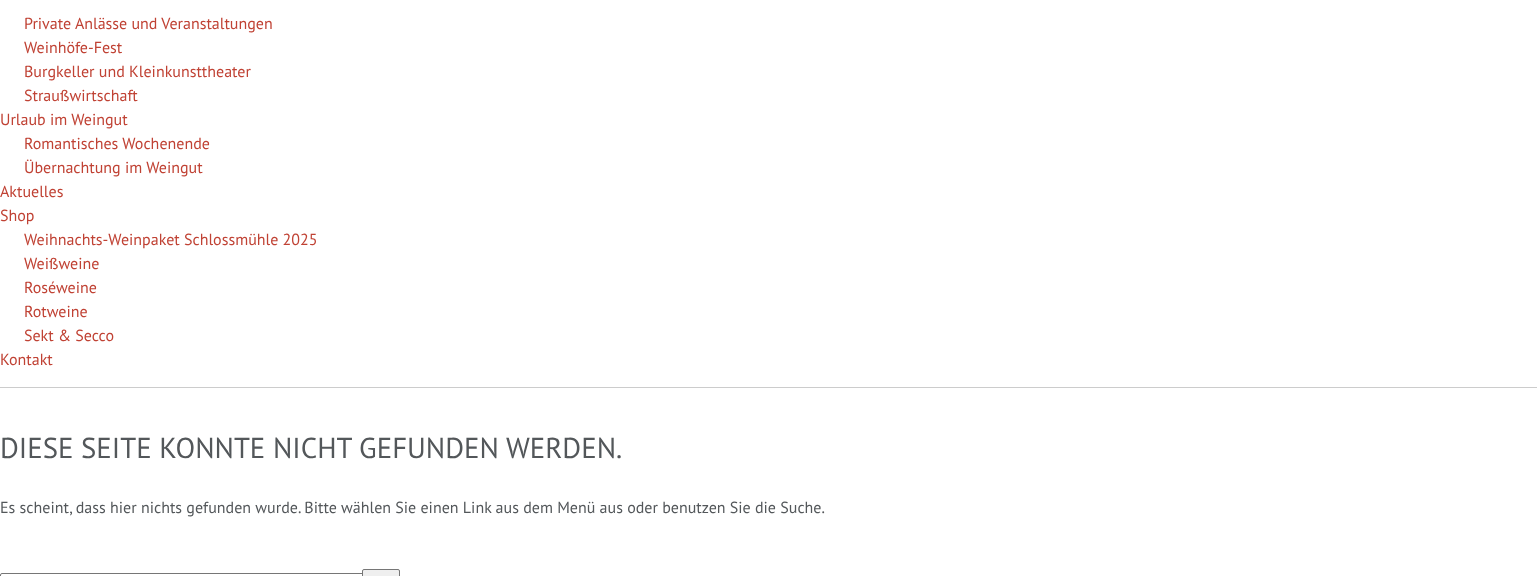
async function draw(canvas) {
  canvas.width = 1537
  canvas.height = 576
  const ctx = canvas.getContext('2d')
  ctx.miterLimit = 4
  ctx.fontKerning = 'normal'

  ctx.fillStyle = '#fff'
  ctx.fillRect(0, 0, 1537, 576)
  ctx.fillStyle = '#ccc'
  ctx.fillRect(0, 387, 1537, 1)
  ctx.font = '16px PT Sans'
  ctx.fillStyle = '#c04234'
  ctx.fillText('Private Anlässe und Veranstaltungen', 24, 29)
  ctx.fillText('Weinhöfe-Fest', 24, 53)
  ctx.fillText('Burgkeller und Kleinkunsttheater', 24, 77)
  ctx.fillText('Straußwirtschaft', 24, 101)
  ctx.fillText('Urlaub im Weingut', 0, 125)
  ctx.fillText('Romantisches Wochenende', 24, 149)
  ctx.fillText('Übernachtung im Weingut', 24, 173)
  ctx.fillText('Aktuelles', 0, 197)
  ctx.fillText('Shop', 0, 221)
  ctx.fillText('Weihnachts-Weinpaket Schlossmühle 2025', 24, 245)
  ctx.fillText('Weißweine', 24, 269)
  ctx.fillText('Roséweine', 24, 293)
  ctx.fillText('Rotweine', 24, 317)
  ctx.fillText('Sekt & Secco', 24, 341)
  ctx.fillText('Kontakt', 0, 365)
  ctx.font = '28.8px PT Sans'
  ctx.fillStyle = '#53575a'
  ctx.fillText('DIESE SEITE KONNTE NICHT GEFUNDEN WERDEN.', 0, 458)
  ctx.font = '16px PT Sans'
  ctx.fillText('Es scheint, dass hier nichts gefunden wurde. Bitte wählen Sie einen Link aus dem Menü aus oder benutzen Sie die Suche.', 0, 513)
  ctx.beginPath()
  ctx.roundRect(0.5, 573.5, 399, 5, 1.5)
  ctx.strokeStyle = '#767676'
  ctx.stroke()
  ctx.fillStyle = '#efefef'
  ctx.beginPath()
  ctx.roundRect(362.5, 569.5, 37, 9, 1.5)
  ctx.fill()
  ctx.stroke()
}

draw(document.querySelector('canvas'))
